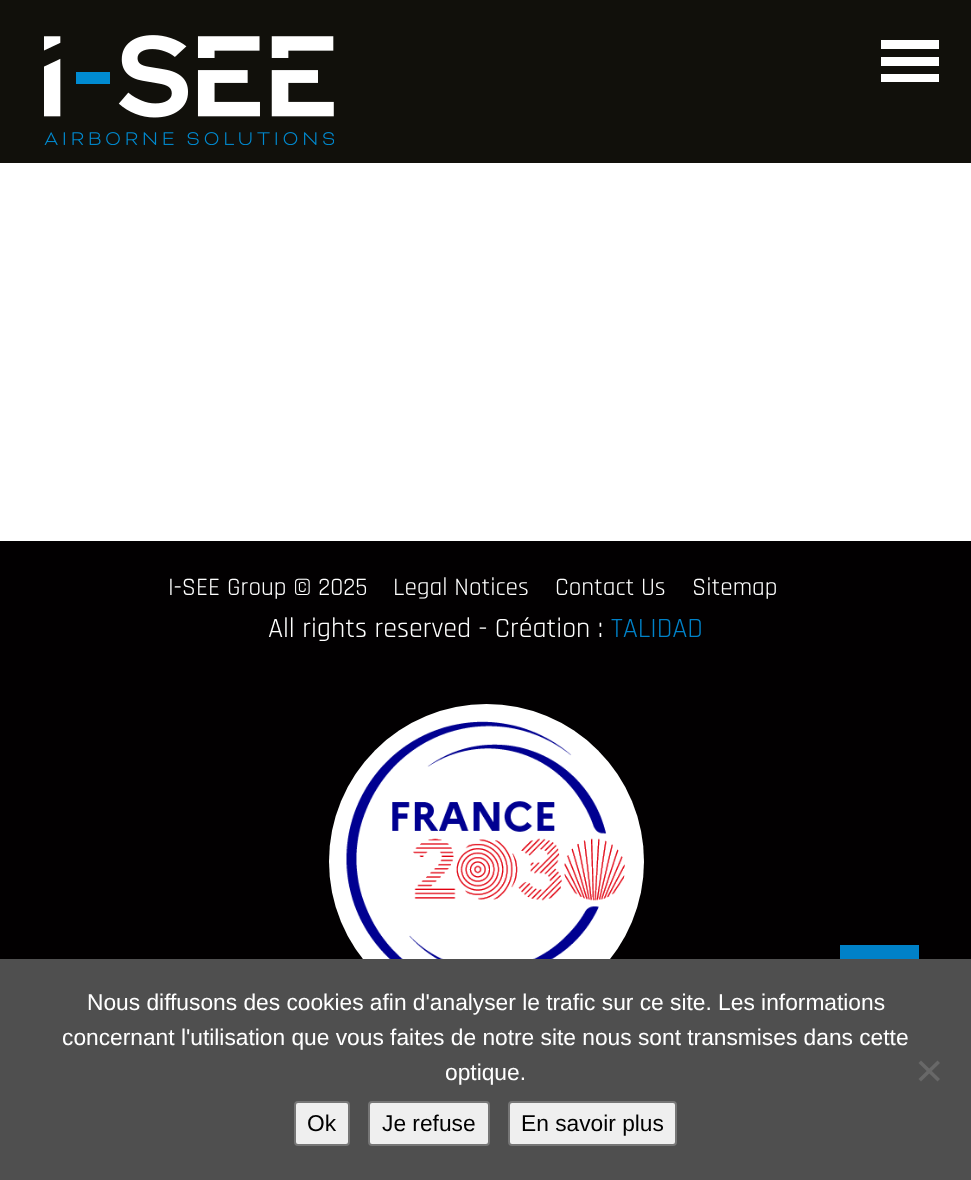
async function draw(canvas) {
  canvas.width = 971
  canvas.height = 1180
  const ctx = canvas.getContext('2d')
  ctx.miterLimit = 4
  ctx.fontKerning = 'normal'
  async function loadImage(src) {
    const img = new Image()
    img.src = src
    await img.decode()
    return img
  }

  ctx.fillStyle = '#fff'
  ctx.fillRect(0, 0, 971, 1180)
  ctx.fillStyle = '#11100b'
  ctx.fillRect(0, 0, 971, 163)
  ctx.drawImage(await loadImage('image0.png'), 44, 35, 290, 110)
  ctx.fillStyle = '#fff'
  ctx.beginPath()
  ctx.moveTo(881, 82)
  ctx.lineTo(939, 82)
  ctx.lineTo(939, 74)
  ctx.lineTo(881, 74)
  ctx.closePath()
  ctx.moveTo(881, 40)
  ctx.lineTo(881, 49)
  ctx.lineTo(939, 49)
  ctx.lineTo(939, 40)
  ctx.closePath()
  ctx.moveTo(881, 66)
  ctx.lineTo(939, 66)
  ctx.lineTo(939, 57)
  ctx.lineTo(881, 57)
  ctx.closePath()
  ctx.fill()
  ctx.fillStyle = '#020001'
  ctx.fillRect(0, 541, 971, 418)
  ctx.font = '25.25px Rajdhani'
  ctx.fillStyle = '#fff'
  ctx.fillText('I-SEE Group © 2025', 168, 595)
  ctx.fillText('Legal Notices', 393, 595)
  ctx.fillText('Contact Us', 555, 595)
  ctx.fillText('Sitemap', 692, 595)
  ctx.font = '28px Rajdhani'
  ctx.fillText('All rights reserved - Création :', 268, 637)
  ctx.fillStyle = '#0081c8'
  ctx.fillText('TALIDAD', 611, 637)
  ctx.fillStyle = '#fff'
  ctx.beginPath()
  ctx.arc(486.5, 861.5, 157.5, 0, 2 * Math.PI)
  ctx.fill()
  ctx.drawImage(await loadImage('image1.png'), 346, 721, 279, 238)
  ctx.fillStyle = '#4f4f4f'
  ctx.fillRect(0, 959, 971, 221)
  ctx.font = '22.75px Liberation Sans'
  ctx.fillStyle = '#fff'
  ctx.fillText('Nous diffusons des cookies afin d\'analyser le trafic sur ce site. Les informations', 87, 1010)
  ctx.fillText('concernant l\'utilisation que vous faites de notre site nous sont transmises dans cette', 62, 1045)
  ctx.fillText('optique.', 445, 1080)
  ctx.fillStyle = '#686868'
  ctx.beginPath()
  ctx.moveTo(937.5, 1060.5)
  ctx.lineTo(940, 1063)
  ctx.lineTo(921, 1081.5)
  ctx.lineTo(918.5, 1079)
  ctx.closePath()
  ctx.fill()
  ctx.beginPath()
  ctx.moveTo(918.5, 1063)
  ctx.lineTo(921, 1060.5)
  ctx.lineTo(940, 1079)
  ctx.lineTo(937.5, 1081.5)
  ctx.closePath()
  ctx.fill()
  ctx.fillStyle = '#efefef'
  ctx.beginPath()
  ctx.roundRect(295, 1102, 54, 43, 3)
  ctx.fill()
  ctx.strokeStyle = '#767676'
  ctx.lineWidth = 2
  ctx.stroke()
  ctx.fillStyle = '#000'
  ctx.fillText('Ok', 307, 1131)
  ctx.fillStyle = '#efefef'
  ctx.beginPath()
  ctx.roundRect(369, 1102, 120, 43, 3)
  ctx.fill()
  ctx.stroke()
  ctx.fillStyle = '#000'
  ctx.fillText('Je refuse', 382, 1131)
  ctx.fillStyle = '#efefef'
  ctx.beginPath()
  ctx.roundRect(509, 1102, 167, 43, 3)
  ctx.fill()
  ctx.stroke()
  ctx.fillStyle = '#000'
  ctx.fillText('En savoir plus', 521, 1131)
  ctx.fillStyle = '#0081c8'
  ctx.fillRect(840, 945, 79, 14)
}

draw(document.querySelector('canvas'))
